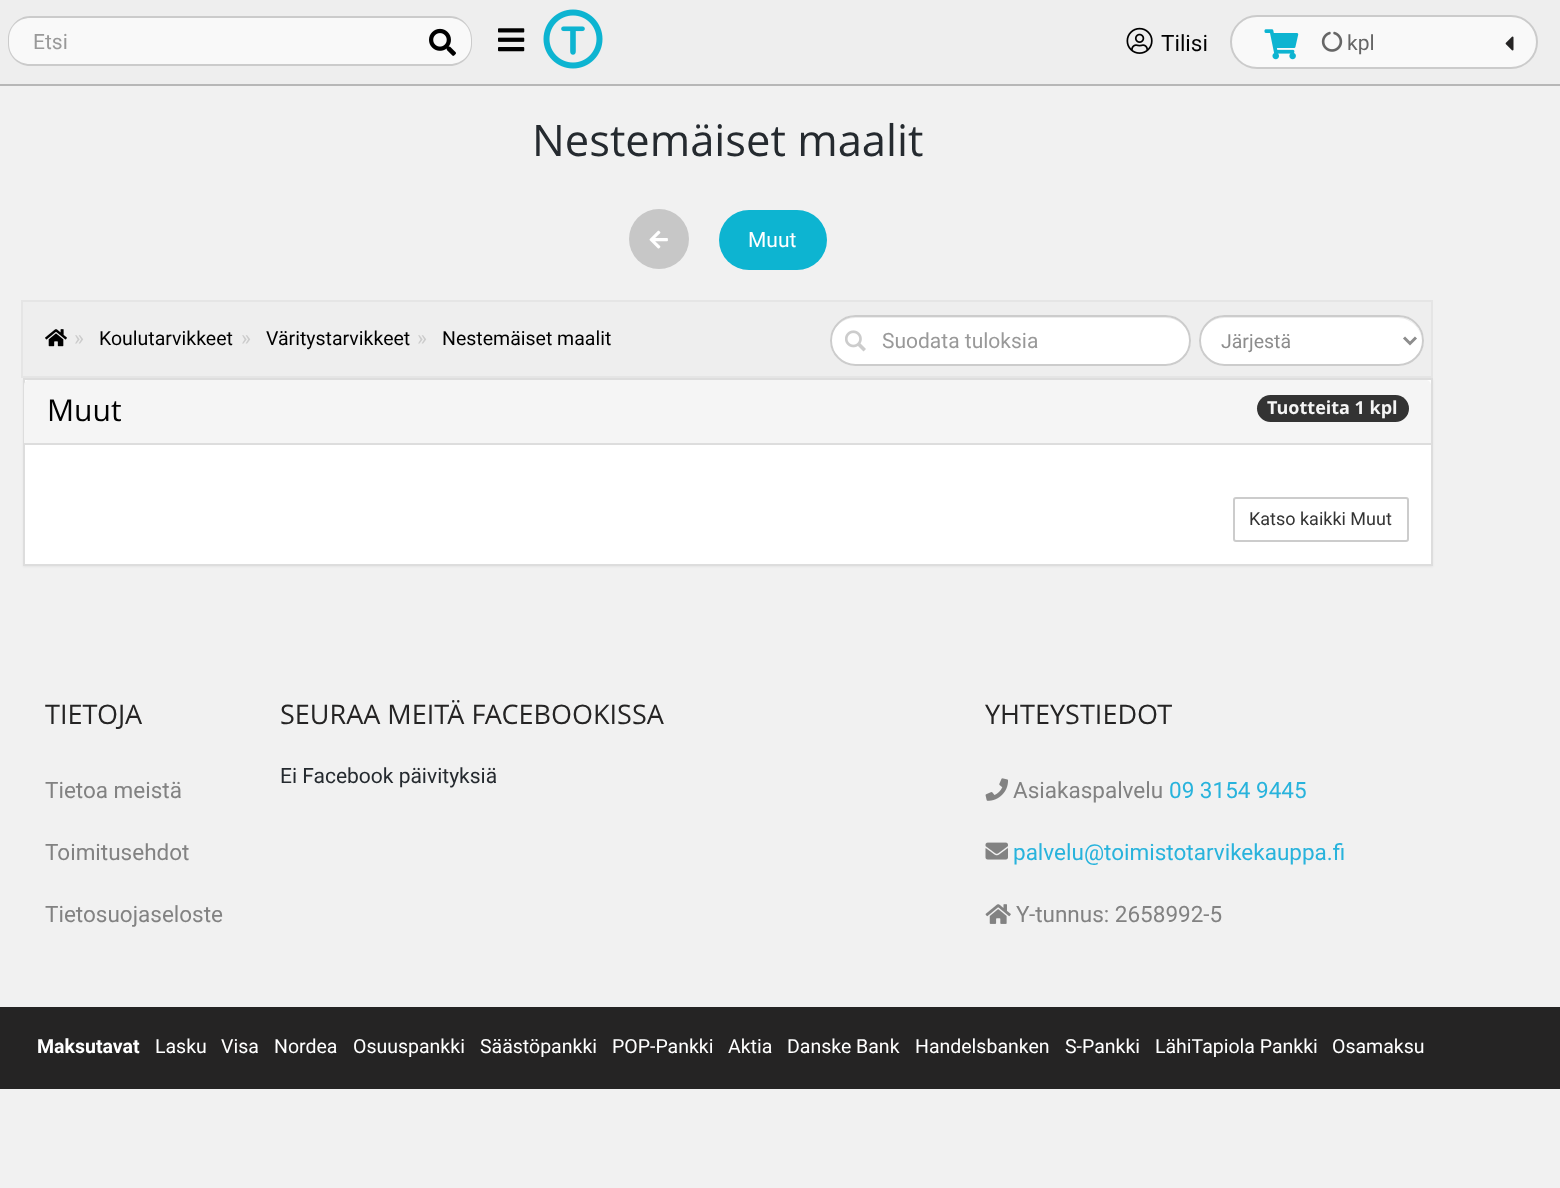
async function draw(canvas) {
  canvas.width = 1560
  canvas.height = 1188
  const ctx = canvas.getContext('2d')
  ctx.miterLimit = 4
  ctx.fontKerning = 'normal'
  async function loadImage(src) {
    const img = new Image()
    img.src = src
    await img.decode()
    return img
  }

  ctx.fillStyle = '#f1f1f1'
  ctx.fillRect(0, 0, 1560, 1188)
  ctx.fillStyle = '#eee'
  ctx.fillRect(0, 0, 1560, 84)
  ctx.fillStyle = '#b7b7b7'
  ctx.fillRect(0, 84, 1560, 2)
  ctx.fillStyle = '#f9f9f9'
  ctx.beginPath()
  ctx.roundRect(414, 18, 57, 47, [0, 21, 21, 0])
  ctx.fill()
  ctx.fillStyle = '#cbcbcb'
  ctx.beginPath()
  ctx.moveTo(414, 16)
  ctx.lineTo(450, 16)
  ctx.bezierCurveTo(462, 16, 472, 27, 472, 39)
  ctx.lineTo(472, 44)
  ctx.bezierCurveTo(472, 56, 462, 66, 450, 66)
  ctx.lineTo(414, 66)
  ctx.closePath()
  ctx.moveTo(414, 18)
  ctx.lineTo(450, 18)
  ctx.bezierCurveTo(462, 18, 471, 27, 471, 39)
  ctx.lineTo(471, 44)
  ctx.bezierCurveTo(471, 55, 462, 64, 450, 64)
  ctx.lineTo(414, 64)
  ctx.closePath()
  ctx.fill('evenodd')
  ctx.fillStyle = '#f9f9f9'
  ctx.beginPath()
  ctx.roundRect(9, 18, 407, 47, [21, 0, 0, 21])
  ctx.fill()
  ctx.fillStyle = '#cbcbcb'
  ctx.beginPath()
  ctx.moveTo(30, 16)
  ctx.lineTo(416, 16)
  ctx.lineTo(416, 66)
  ctx.lineTo(30, 66)
  ctx.bezierCurveTo(18, 66, 8, 56, 8, 44)
  ctx.lineTo(8, 39)
  ctx.bezierCurveTo(8, 27, 18, 16, 30, 16)
  ctx.closePath()
  ctx.moveTo(30, 18)
  ctx.lineTo(416, 18)
  ctx.lineTo(416, 64)
  ctx.lineTo(30, 64)
  ctx.bezierCurveTo(18, 64, 9, 55, 9, 44)
  ctx.lineTo(9, 39)
  ctx.bezierCurveTo(9, 27, 18, 18, 30, 18)
  ctx.closePath()
  ctx.fill('evenodd')
  ctx.font = '21px Roboto'
  ctx.fillStyle = '#999'
  ctx.fillText('Etsi', 33, 49)
  ctx.drawImage(await loadImage('image0.png'), 429, 28, 27, 28)
  ctx.drawImage(await loadImage('image1.png'), 498, 28, 27, 24)
  ctx.drawImage(await loadImage('image2.png'), 543, 9, 60, 60)
  ctx.drawImage(await loadImage('image3.png'), 1126, 27, 27, 27)
  ctx.font = '22.5px Roboto'
  ctx.fillStyle = '#000'
  ctx.fillText('Tilisi', 1161, 51)
  ctx.fillStyle = '#f9f9f9'
  ctx.beginPath()
  ctx.roundRect(1231, 16, 306, 52, 26)
  ctx.fill()
  ctx.strokeStyle = '#cbcbcb'
  ctx.lineWidth = 2
  ctx.stroke()
  ctx.drawImage(await loadImage('image4.png'), 1264, 29, 35, 31)
  ctx.drawImage(await loadImage('image5.png'), 1321, 31, 22, 21)
  ctx.font = '21px Roboto'
  ctx.fillStyle = '#666'
  ctx.fillText('kpl', 1347, 50)
  ctx.drawImage(await loadImage('image6.png'), 1505, 36, 9, 15)
  ctx.font = '43.5px Open Sans'
  ctx.fillStyle = '#252a2f'
  ctx.fillText('Nestemäiset maalit', 532, 156)
  ctx.fillStyle = '#c7c7c7'
  ctx.beginPath()
  ctx.arc(659, 239, 30, 0, 2 * Math.PI)
  ctx.fill()
  ctx.drawImage(await loadImage('image7.png'), 649, 230, 19, 19)
  ctx.fillStyle = '#0db4d1'
  ctx.beginPath()
  ctx.roundRect(719, 210, 108, 60, 30)
  ctx.fill()
  ctx.font = '21px Roboto'
  ctx.fillStyle = '#fff'
  ctx.fillText('Muut', 748, 247)
  ctx.fillStyle = '#eee'
  ctx.beginPath()
  ctx.rect(22, 301, 1410, 76)
  ctx.fill()
  ctx.strokeStyle = '#e5e5e5'
  ctx.stroke()
  ctx.drawImage(await loadImage('image8.png'), 45, 329, 22, 18)
  ctx.fillStyle = '#ccc'
  ctx.fillText('»', 74, 345)
  ctx.font = '19.5px Roboto'
  ctx.fillStyle = '#000'
  ctx.fillText('Koulutarvikkeet', 99, 345)
  ctx.font = '21px Roboto'
  ctx.fillStyle = '#ccc'
  ctx.fillText('»', 241, 345)
  ctx.font = '19.5px Roboto'
  ctx.fillStyle = '#000'
  ctx.fillText('Väritystarvikkeet', 266, 345)
  ctx.font = '21px Roboto'
  ctx.fillStyle = '#ccc'
  ctx.fillText('»', 417, 345)
  ctx.font = '19.5px Roboto'
  ctx.fillStyle = '#000'
  ctx.fillText('Nestemäiset maalit', 442, 345)
  ctx.fillStyle = '#fff'
  ctx.beginPath()
  ctx.roundRect(830, 315, 361, 51, 25.5)
  ctx.fill()
  ctx.fillStyle = '#ececec'
  ctx.beginPath()
  ctx.moveTo(855, 318)
  ctx.lineTo(1166, 318)
  ctx.bezierCurveTo(1179, 318, 1190, 329, 1190, 342)
  ctx.bezierCurveTo(1190, 328, 1179, 317, 1166, 317)
  ctx.lineTo(855, 317)
  ctx.bezierCurveTo(842, 317, 831, 328, 831, 342)
  ctx.bezierCurveTo(831, 329, 842, 318, 855, 318)
  ctx.closePath()
  ctx.fill()
  ctx.beginPath()
  ctx.roundRect(831, 316, 359, 49, 24.5)
  ctx.strokeStyle = '#ccc'
  ctx.stroke()
  ctx.drawImage(await loadImage('image9.png'), 845, 330, 21, 22)
  ctx.font = '21px Roboto'
  ctx.fillStyle = '#999'
  ctx.fillText('Suodata tuloksia', 882, 348)
  ctx.fillStyle = '#fff'
  ctx.beginPath()
  ctx.roundRect(1199, 315, 225, 51, 25.5)
  ctx.fill()
  ctx.fillStyle = '#ececec'
  ctx.beginPath()
  ctx.moveTo(1224, 318)
  ctx.lineTo(1398, 318)
  ctx.bezierCurveTo(1411, 318, 1422, 329, 1422, 342)
  ctx.lineTo(1422, 341)
  ctx.bezierCurveTo(1422, 328, 1411, 317, 1398, 317)
  ctx.lineTo(1224, 317)
  ctx.bezierCurveTo(1211, 317, 1200, 328, 1200, 341)
  ctx.lineTo(1200, 342)
  ctx.bezierCurveTo(1200, 329, 1211, 318, 1224, 318)
  ctx.closePath()
  ctx.fill()
  ctx.beginPath()
  ctx.roundRect(1200, 316, 223, 49, 24.5)
  ctx.stroke()
  ctx.beginPath()
  ctx.moveTo(1404, 337.5)
  ctx.lineTo(1410, 343.5)
  ctx.lineTo(1416, 337.5)
  ctx.strokeStyle = '#8d8d8d'
  ctx.lineWidth = 3
  ctx.stroke()
  ctx.font = '19.5px Roboto'
  ctx.fillStyle = '#8d8d8d'
  ctx.fillText('Järjestä', 1221, 348)
  ctx.fillStyle = '#0000000d'
  ctx.filter = 'blur(1px)'
  ctx.beginPath()
  ctx.rect(23, 380, 1410, 187)
  ctx.fill()
  ctx.filter = 'none'
  ctx.fillStyle = '#fff'
  ctx.beginPath()
  ctx.rect(24, 379, 1408, 186)
  ctx.fill()
  ctx.strokeStyle = '#ddd'
  ctx.lineWidth = 2
  ctx.stroke()
  ctx.fillStyle = '#f5f5f5'
  ctx.beginPath()
  ctx.roundRect(24, 380, 1407, 64, [5, 5, 0, 0])
  ctx.fill()
  ctx.fillStyle = '#ddd'
  ctx.fillRect(24, 443, 1407, 2)
  ctx.font = '30px Open Sans'
  ctx.fillStyle = '#000'
  ctx.fillText('Muut', 47, 421)
  ctx.fillStyle = '#333'
  ctx.beginPath()
  ctx.roundRect(1257, 395, 152, 27, 13.5)
  ctx.fill()
  ctx.font = 'bold 18px Open Sans'
  ctx.fillStyle = '#f5f5f5'
  ctx.fillText('Tuotteita 1 kpl', 1267, 414)
  ctx.beginPath()
  ctx.roundRect(1234, 498, 174, 43, 2)
  ctx.strokeStyle = '#ccc'
  ctx.stroke()
  ctx.font = '18px Roboto'
  ctx.fillStyle = '#333'
  ctx.fillText('Katso kaikki Muut', 1249, 525)
  ctx.font = '27px Open Sans'
  ctx.fillStyle = '#252424'
  ctx.fillText('TIETOJA', 45, 724)
  ctx.font = '22.5px Roboto'
  ctx.fillStyle = '#828282'
  ctx.fillText('Tietoa meistä', 45, 798)
  ctx.fillText('Toimitusehdot', 45, 860)
  ctx.fillText('Tietosuojaseloste', 45, 922)
  ctx.font = '27px Open Sans'
  ctx.fillStyle = '#252424'
  ctx.fillText('SEURAA MEITÄ FACEBOOKISSA', 280, 724)
  ctx.font = '21px Roboto'
  ctx.fillStyle = '#252a2f'
  ctx.fillText('Ei Facebook päivityksiä', 280, 783)
  ctx.font = '27px Open Sans'
  ctx.fillStyle = '#252424'
  ctx.fillText('YHTEYSTIEDOT', 985, 724)
  ctx.drawImage(await loadImage('image10.png'), 985, 778, 23, 23)
  ctx.font = '22.5px Roboto'
  ctx.fillStyle = '#828282'
  ctx.fillText('Asiakaspalvelu', 1013, 798)
  ctx.fillStyle = '#28b3dc'
  ctx.fillText('09 3154 9445', 1169, 798)
  ctx.drawImage(await loadImage('image11.png'), 985, 842, 23, 18)
  ctx.fillText('palvelu@toimistotarvikekauppa.fi', 1013, 860)
  ctx.drawImage(await loadImage('image12.png'), 985, 904, 26, 20)
  ctx.fillStyle = '#828282'
  ctx.fillText('Y-tunnus: 2658992-5', 1016, 922)
  ctx.fillStyle = '#252424'
  ctx.fillRect(0, 1007, 1560, 82)
  ctx.font = 'bold 19.5px Roboto'
  ctx.fillStyle = '#fff'
  ctx.fillText('Maksutavat', 37, 1053)
  ctx.font = '19.5px Roboto'
  ctx.fillText('Lasku', 155, 1053)
  ctx.fillText('Visa', 221, 1053)
  ctx.fillText('Nordea', 274, 1053)
  ctx.fillText('Osuuspankki', 353, 1053)
  ctx.fillText('Säästöpankki', 480, 1053)
  ctx.fillText('POP-Pankki', 612, 1053)
  ctx.fillText('Aktia', 728, 1053)
  ctx.fillText('Danske Bank', 787, 1053)
  ctx.fillText('Handelsbanken', 915, 1053)
  ctx.fillText('S-Pankki', 1065, 1053)
  ctx.fillText('LähiTapiola Pankki', 1155, 1053)
  ctx.fillText('Osamaksu', 1332, 1053)
}

draw(document.querySelector('canvas'))
